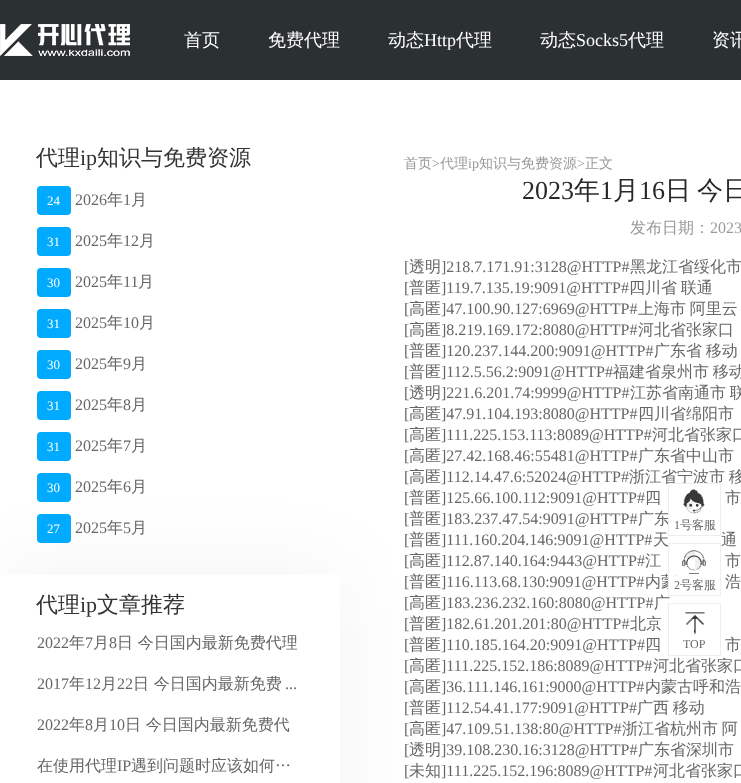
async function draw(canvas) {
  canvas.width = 741
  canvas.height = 783
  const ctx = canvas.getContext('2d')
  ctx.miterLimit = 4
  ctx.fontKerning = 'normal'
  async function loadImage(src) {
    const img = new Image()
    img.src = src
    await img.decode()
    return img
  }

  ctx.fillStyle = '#fff'
  ctx.fillRect(0, 0, 741, 783)
  ctx.fillStyle = '#2b3033'
  ctx.fillRect(0, 0, 741, 80)
  ctx.drawImage(await loadImage('image0.png'), 0, 24, 130, 32)
  ctx.font = '500 18px WenQuanYi Zen Hei'
  ctx.fillStyle = '#fff'
  ctx.fillText('首页', 184, 46)
  ctx.fillText('免费代理', 268, 46)
  ctx.fillText('动态', 388, 46)
  ctx.font = '18px Liberation Serif'
  ctx.fillText('Http', 424, 46)
  ctx.font = '500 18px WenQuanYi Zen Hei'
  ctx.fillText('代理', 456, 46)
  ctx.fillText('动态', 540, 46)
  ctx.font = '18px Liberation Serif'
  ctx.fillText('Socks5', 576, 46)
  ctx.font = '500 18px WenQuanYi Zen Hei'
  ctx.fillText('代理', 628, 46)
  ctx.fillText('资讯', 712, 46)
  ctx.font = '500 22px WenQuanYi Zen Hei'
  ctx.fillStyle = '#333'
  ctx.fillText('代理', 36, 165)
  ctx.font = '22px Liberation Serif'
  ctx.fillText('ip', 80, 165)
  ctx.font = '500 22px WenQuanYi Zen Hei'
  ctx.fillText('知识与免费资源', 97, 165)
  ctx.fillStyle = '#0af'
  ctx.beginPath()
  ctx.roundRect(37, 186, 34, 29, 4)
  ctx.fill()
  ctx.font = '13px Liberation Serif'
  ctx.fillStyle = '#fff'
  ctx.fillText('24', 47, 205)
  ctx.font = '16px Liberation Serif'
  ctx.fillStyle = '#666'
  ctx.fillText('2026', 75, 205)
  ctx.font = '500 16px WenQuanYi Zen Hei'
  ctx.fillText('年', 107, 205)
  ctx.font = '16px Liberation Serif'
  ctx.fillText('1', 123, 205)
  ctx.font = '500 16px WenQuanYi Zen Hei'
  ctx.fillText('月', 131, 205)
  ctx.fillStyle = '#0af'
  ctx.beginPath()
  ctx.roundRect(37, 227, 34, 29, 4)
  ctx.fill()
  ctx.font = '13px Liberation Serif'
  ctx.fillStyle = '#fff'
  ctx.fillText('31', 47, 246)
  ctx.font = '16px Liberation Serif'
  ctx.fillStyle = '#666'
  ctx.fillText('2025', 75, 246)
  ctx.font = '500 16px WenQuanYi Zen Hei'
  ctx.fillText('年', 107, 246)
  ctx.font = '16px Liberation Serif'
  ctx.fillText('12', 123, 246)
  ctx.font = '500 16px WenQuanYi Zen Hei'
  ctx.fillText('月', 139, 246)
  ctx.fillStyle = '#0af'
  ctx.beginPath()
  ctx.roundRect(37, 268, 34, 29, 4)
  ctx.fill()
  ctx.font = '13px Liberation Serif'
  ctx.fillStyle = '#fff'
  ctx.fillText('30', 47, 287)
  ctx.font = '16px Liberation Serif'
  ctx.fillStyle = '#666'
  ctx.fillText('2025', 75, 287)
  ctx.font = '500 16px WenQuanYi Zen Hei'
  ctx.fillText('年', 107, 287)
  ctx.font = '16px Liberation Serif'
  ctx.fillText('11', 123, 287)
  ctx.font = '500 16px WenQuanYi Zen Hei'
  ctx.fillText('月', 138, 287)
  ctx.fillStyle = '#0af'
  ctx.beginPath()
  ctx.roundRect(37, 309, 34, 29, 4)
  ctx.fill()
  ctx.font = '13px Liberation Serif'
  ctx.fillStyle = '#fff'
  ctx.fillText('31', 47, 328)
  ctx.font = '16px Liberation Serif'
  ctx.fillStyle = '#666'
  ctx.fillText('2025', 75, 328)
  ctx.font = '500 16px WenQuanYi Zen Hei'
  ctx.fillText('年', 107, 328)
  ctx.font = '16px Liberation Serif'
  ctx.fillText('10', 123, 328)
  ctx.font = '500 16px WenQuanYi Zen Hei'
  ctx.fillText('月', 139, 328)
  ctx.fillStyle = '#0af'
  ctx.beginPath()
  ctx.roundRect(37, 350, 34, 29, 4)
  ctx.fill()
  ctx.font = '13px Liberation Serif'
  ctx.fillStyle = '#fff'
  ctx.fillText('30', 47, 369)
  ctx.font = '16px Liberation Serif'
  ctx.fillStyle = '#666'
  ctx.fillText('2025', 75, 369)
  ctx.font = '500 16px WenQuanYi Zen Hei'
  ctx.fillText('年', 107, 369)
  ctx.font = '16px Liberation Serif'
  ctx.fillText('9', 123, 369)
  ctx.font = '500 16px WenQuanYi Zen Hei'
  ctx.fillText('月', 131, 369)
  ctx.fillStyle = '#0af'
  ctx.beginPath()
  ctx.roundRect(37, 391, 34, 29, 4)
  ctx.fill()
  ctx.font = '13px Liberation Serif'
  ctx.fillStyle = '#fff'
  ctx.fillText('31', 47, 410)
  ctx.font = '16px Liberation Serif'
  ctx.fillStyle = '#666'
  ctx.fillText('2025', 75, 410)
  ctx.font = '500 16px WenQuanYi Zen Hei'
  ctx.fillText('年', 107, 410)
  ctx.font = '16px Liberation Serif'
  ctx.fillText('8', 123, 410)
  ctx.font = '500 16px WenQuanYi Zen Hei'
  ctx.fillText('月', 131, 410)
  ctx.fillStyle = '#0000000d'
  ctx.filter = 'blur(45px)'
  ctx.beginPath()
  ctx.rect(0, 575, 340, 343)
  ctx.fill()
  ctx.filter = 'none'
  ctx.fillStyle = '#0af'
  ctx.beginPath()
  ctx.roundRect(37, 432, 34, 29, 4)
  ctx.fill()
  ctx.font = '13px Liberation Serif'
  ctx.fillStyle = '#fff'
  ctx.fillText('31', 47, 451)
  ctx.font = '16px Liberation Serif'
  ctx.fillStyle = '#666'
  ctx.fillText('2025', 75, 451)
  ctx.font = '500 16px WenQuanYi Zen Hei'
  ctx.fillText('年', 107, 451)
  ctx.font = '16px Liberation Serif'
  ctx.fillText('7', 123, 451)
  ctx.font = '500 16px WenQuanYi Zen Hei'
  ctx.fillText('月', 131, 451)
  ctx.fillStyle = '#0af'
  ctx.beginPath()
  ctx.roundRect(37, 473, 34, 29, 4)
  ctx.fill()
  ctx.font = '13px Liberation Serif'
  ctx.fillStyle = '#fff'
  ctx.fillText('30', 47, 492)
  ctx.font = '16px Liberation Serif'
  ctx.fillStyle = '#666'
  ctx.fillText('2025', 75, 492)
  ctx.font = '500 16px WenQuanYi Zen Hei'
  ctx.fillText('年', 107, 492)
  ctx.font = '16px Liberation Serif'
  ctx.fillText('6', 123, 492)
  ctx.font = '500 16px WenQuanYi Zen Hei'
  ctx.fillText('月', 131, 492)
  ctx.fillStyle = '#0af'
  ctx.beginPath()
  ctx.roundRect(37, 514, 34, 29, 4)
  ctx.fill()
  ctx.font = '13px Liberation Serif'
  ctx.fillStyle = '#fff'
  ctx.fillText('27', 47, 533)
  ctx.font = '16px Liberation Serif'
  ctx.fillStyle = '#666'
  ctx.fillText('2025', 75, 533)
  ctx.font = '500 16px WenQuanYi Zen Hei'
  ctx.fillText('年', 107, 533)
  ctx.font = '16px Liberation Serif'
  ctx.fillText('5', 123, 533)
  ctx.font = '500 16px WenQuanYi Zen Hei'
  ctx.fillText('月', 131, 533)
  ctx.fillStyle = '#fff'
  ctx.fillRect(0, 575, 340, 208)
  ctx.font = '500 22px WenQuanYi Zen Hei'
  ctx.fillStyle = '#333'
  ctx.fillText('代理', 36, 612)
  ctx.font = '22px Liberation Serif'
  ctx.fillText('ip', 80, 612)
  ctx.font = '500 22px WenQuanYi Zen Hei'
  ctx.fillText('文章推荐', 97, 612)
  ctx.font = '16px Liberation Serif'
  ctx.fillStyle = '#666'
  ctx.fillText('2022', 37, 648)
  ctx.font = '500 16px WenQuanYi Zen Hei'
  ctx.fillText('年', 69, 648)
  ctx.font = '16px Liberation Serif'
  ctx.fillText('7', 85, 648)
  ctx.font = '500 16px WenQuanYi Zen Hei'
  ctx.fillText('月', 93, 648)
  ctx.font = '16px Liberation Serif'
  ctx.fillText('8', 109, 648)
  ctx.font = '500 16px WenQuanYi Zen Hei'
  ctx.fillText('日 今日国内最新免费代理', 117, 648)
  ctx.font = '16px Liberation Serif'
  ctx.fillText('2017', 37, 689)
  ctx.font = '500 16px WenQuanYi Zen Hei'
  ctx.fillText('年', 69, 689)
  ctx.font = '16px Liberation Serif'
  ctx.fillText('12', 85, 689)
  ctx.font = '500 16px WenQuanYi Zen Hei'
  ctx.fillText('月', 101, 689)
  ctx.font = '16px Liberation Serif'
  ctx.fillText('22', 117, 689)
  ctx.font = '500 16px WenQuanYi Zen Hei'
  ctx.fillText('日 今日国内最新免费', 133, 689)
  ctx.font = '16px Liberation Serif'
  ctx.fillText('...', 285, 689)
  ctx.fillText('2022', 37, 730)
  ctx.font = '500 16px WenQuanYi Zen Hei'
  ctx.fillText('年', 69, 730)
  ctx.font = '16px Liberation Serif'
  ctx.fillText('8', 85, 730)
  ctx.font = '500 16px WenQuanYi Zen Hei'
  ctx.fillText('月', 93, 730)
  ctx.font = '16px Liberation Serif'
  ctx.fillText('10', 109, 730)
  ctx.font = '500 16px WenQuanYi Zen Hei'
  ctx.fillText('日 今日国内最新免费代', 125, 730)
  ctx.fillText('在使用代理', 37, 771)
  ctx.font = '16px Liberation Serif'
  ctx.fillText('IP', 117, 771)
  ctx.font = '500 16px WenQuanYi Zen Hei'
  ctx.fillText('遇到问题时应该如何…', 131, 771)
  ctx.font = '500 14px WenQuanYi Zen Hei'
  ctx.fillStyle = '#999'
  ctx.fillText('首页', 404, 168)
  ctx.font = '14px Liberation Serif'
  ctx.fillText('>', 432, 168)
  ctx.font = '500 14px WenQuanYi Zen Hei'
  ctx.fillText('代理', 440, 168)
  ctx.font = '14px Liberation Serif'
  ctx.fillText('ip', 468, 168)
  ctx.font = '500 14px WenQuanYi Zen Hei'
  ctx.fillText('知识与免费资源', 479, 168)
  ctx.font = '14px Liberation Serif'
  ctx.fillText('>', 577, 168)
  ctx.font = '500 14px WenQuanYi Zen Hei'
  ctx.fillText('正文', 585, 168)
  ctx.font = '26px Liberation Serif'
  ctx.fillStyle = '#292929'
  ctx.fillText('2023', 522, 199)
  ctx.font = '500 26px WenQuanYi Zen Hei'
  ctx.fillText('年', 574, 199)
  ctx.font = '26px Liberation Serif'
  ctx.fillText('1', 600, 199)
  ctx.font = '500 26px WenQuanYi Zen Hei'
  ctx.fillText('月', 613, 199)
  ctx.font = '26px Liberation Serif'
  ctx.fillText('16', 639, 199)
  ctx.font = '500 26px WenQuanYi Zen Hei'
  ctx.fillText('日', 665, 199)
  ctx.fillText('今日', 697, 199)
  ctx.font = '500 16px WenQuanYi Zen Hei'
  ctx.fillStyle = '#999'
  ctx.fillText('发布日期：', 630, 233)
  ctx.font = '16px Liberation Serif'
  ctx.fillText('2023', 710, 233)
  ctx.fillStyle = '#666'
  ctx.fillText('[', 404, 272)
  ctx.font = '500 16px WenQuanYi Zen Hei'
  ctx.fillText('透明', 409, 272)
  ctx.font = '16px Liberation Serif'
  ctx.fillText(']218.7.171.91:3128@HTTP#', 441, 272)
  ctx.wordSpacing = '-1px'
  ctx.font = '500 16px WenQuanYi Zen Hei'
  ctx.fillText('黑龙江省绥化市', 630, 272)
  ctx.wordSpacing = '0px'
  ctx.font = '16px Liberation Serif'
  ctx.fillText('[', 404, 293)
  ctx.font = '500 16px WenQuanYi Zen Hei'
  ctx.fillText('普匿', 409, 293)
  ctx.font = '16px Liberation Serif'
  ctx.fillText(']119.7.135.19:9091@HTTP#', 441, 293)
  ctx.wordSpacing = '-1px'
  ctx.font = '500 16px WenQuanYi Zen Hei'
  ctx.fillText('四川省 联通', 629, 293)
  ctx.wordSpacing = '0px'
  ctx.font = '16px Liberation Serif'
  ctx.fillText('[', 404, 314)
  ctx.font = '500 16px WenQuanYi Zen Hei'
  ctx.fillText('高匿', 409, 314)
  ctx.font = '16px Liberation Serif'
  ctx.fillText(']47.100.90.127:6969@HTTP#', 441, 314)
  ctx.wordSpacing = '-1px'
  ctx.font = '500 16px WenQuanYi Zen Hei'
  ctx.fillText('上海市 阿里云', 638, 314)
  ctx.wordSpacing = '0px'
  ctx.font = '16px Liberation Serif'
  ctx.fillText('[', 404, 335)
  ctx.font = '500 16px WenQuanYi Zen Hei'
  ctx.fillText('高匿', 409, 335)
  ctx.font = '16px Liberation Serif'
  ctx.fillText(']8.219.169.172:8080@HTTP#', 441, 335)
  ctx.wordSpacing = '-1px'
  ctx.font = '500 16px WenQuanYi Zen Hei'
  ctx.fillText('河北省张家口', 638, 335)
  ctx.wordSpacing = '0px'
  ctx.font = '16px Liberation Serif'
  ctx.fillText('[', 404, 356)
  ctx.font = '500 16px WenQuanYi Zen Hei'
  ctx.fillText('普匿', 409, 356)
  ctx.font = '16px Liberation Serif'
  ctx.fillText(']120.237.144.200:9091@HTTP#', 441, 356)
  ctx.wordSpacing = '-1px'
  ctx.font = '500 16px WenQuanYi Zen Hei'
  ctx.fillText('广东省 移动', 654, 356)
  ctx.wordSpacing = '0px'
  ctx.font = '16px Liberation Serif'
  ctx.fillText('[', 404, 377)
  ctx.font = '500 16px WenQuanYi Zen Hei'
  ctx.fillText('普匿', 409, 377)
  ctx.font = '16px Liberation Serif'
  ctx.fillText(']112.5.56.2:9091@HTTP#', 441, 377)
  ctx.wordSpacing = '-1px'
  ctx.font = '500 16px WenQuanYi Zen Hei'
  ctx.fillText('福建省泉州市 移动', 613, 377)
  ctx.wordSpacing = '0px'
  ctx.font = '16px Liberation Serif'
  ctx.fillText('[', 404, 398)
  ctx.font = '500 16px WenQuanYi Zen Hei'
  ctx.fillText('透明', 409, 398)
  ctx.font = '16px Liberation Serif'
  ctx.fillText(']221.6.201.74:9999@HTTP#', 441, 398)
  ctx.wordSpacing = '-1px'
  ctx.font = '500 16px WenQuanYi Zen Hei'
  ctx.fillText('江苏省南通市 联', 630, 398)
  ctx.wordSpacing = '0px'
  ctx.font = '16px Liberation Serif'
  ctx.fillText('[', 404, 419)
  ctx.font = '500 16px WenQuanYi Zen Hei'
  ctx.fillText('高匿', 409, 419)
  ctx.font = '16px Liberation Serif'
  ctx.fillText(']47.91.104.193:8080@HTTP#', 441, 419)
  ctx.wordSpacing = '-1px'
  ctx.font = '500 16px WenQuanYi Zen Hei'
  ctx.fillText('四川省绵阳市', 638, 419)
  ctx.wordSpacing = '0px'
  ctx.font = '16px Liberation Serif'
  ctx.fillText('[', 404, 440)
  ctx.font = '500 16px WenQuanYi Zen Hei'
  ctx.fillText('高匿', 409, 440)
  ctx.font = '16px Liberation Serif'
  ctx.fillText(']111.225.153.113:8089@HTTP#', 441, 440)
  ctx.wordSpacing = '-1px'
  ctx.font = '500 16px WenQuanYi Zen Hei'
  ctx.fillText('河北省张家口', 652, 440)
  ctx.wordSpacing = '0px'
  ctx.font = '16px Liberation Serif'
  ctx.fillText('[', 404, 461)
  ctx.font = '500 16px WenQuanYi Zen Hei'
  ctx.fillText('高匿', 409, 461)
  ctx.font = '16px Liberation Serif'
  ctx.fillText(']27.42.168.46:55481@HTTP#', 441, 461)
  ctx.wordSpacing = '-1px'
  ctx.font = '500 16px WenQuanYi Zen Hei'
  ctx.fillText('广东省中山市', 638, 461)
  ctx.wordSpacing = '0px'
  ctx.font = '16px Liberation Serif'
  ctx.fillText('[', 404, 482)
  ctx.font = '500 16px WenQuanYi Zen Hei'
  ctx.fillText('高匿', 409, 482)
  ctx.font = '16px Liberation Serif'
  ctx.fillText(']112.14.47.6:52024@HTTP#', 441, 482)
  ctx.wordSpacing = '-1px'
  ctx.font = '500 16px WenQuanYi Zen Hei'
  ctx.fillText('浙江省宁波市 移', 629, 482)
  ctx.wordSpacing = '0px'
  ctx.font = '16px Liberation Serif'
  ctx.fillText('[', 404, 503)
  ctx.font = '500 16px WenQuanYi Zen Hei'
  ctx.fillText('普匿', 409, 503)
  ctx.font = '16px Liberation Serif'
  ctx.fillText(']125.66.100.112:9091@HTTP#', 441, 503)
  ctx.wordSpacing = '-1px'
  ctx.font = '500 16px WenQuanYi Zen Hei'
  ctx.fillText('四', 645, 503)
  ctx.fillText('市', 725, 503)
  ctx.wordSpacing = '0px'
  ctx.font = '16px Liberation Serif'
  ctx.fillText('[', 404, 524)
  ctx.font = '500 16px WenQuanYi Zen Hei'
  ctx.fillText('普匿', 409, 524)
  ctx.font = '16px Liberation Serif'
  ctx.fillText(']183.237.47.54:9091@HTTP#', 441, 524)
  ctx.wordSpacing = '-1px'
  ctx.font = '500 16px WenQuanYi Zen Hei'
  ctx.fillText('广东', 638, 524)
  ctx.wordSpacing = '0px'
  ctx.font = '16px Liberation Serif'
  ctx.fillText('[', 404, 545)
  ctx.font = '500 16px WenQuanYi Zen Hei'
  ctx.fillText('普匿', 409, 545)
  ctx.font = '16px Liberation Serif'
  ctx.fillText(']111.160.204.146:9091@HTTP#', 441, 545)
  ctx.wordSpacing = '-1px'
  ctx.font = '500 16px WenQuanYi Zen Hei'
  ctx.fillText('天', 653, 545)
  ctx.fillText('通', 721, 545)
  ctx.wordSpacing = '0px'
  ctx.font = '16px Liberation Serif'
  ctx.fillText('[', 404, 566)
  ctx.font = '500 16px WenQuanYi Zen Hei'
  ctx.fillText('高匿', 409, 566)
  ctx.font = '16px Liberation Serif'
  ctx.fillText(']112.87.140.164:9443@HTTP#', 441, 566)
  ctx.wordSpacing = '-1px'
  ctx.font = '500 16px WenQuanYi Zen Hei'
  ctx.fillText('江', 645, 566)
  ctx.fillText('市', 725, 566)
  ctx.wordSpacing = '0px'
  ctx.font = '16px Liberation Serif'
  ctx.fillText('[', 404, 587)
  ctx.font = '500 16px WenQuanYi Zen Hei'
  ctx.fillText('普匿', 409, 587)
  ctx.font = '16px Liberation Serif'
  ctx.fillText(']116.113.68.130:9091@HTTP#', 441, 587)
  ctx.wordSpacing = '-1px'
  ctx.font = '500 16px WenQuanYi Zen Hei'
  ctx.fillText('内蒙', 645, 587)
  ctx.fillText('浩', 725, 587)
  ctx.wordSpacing = '0px'
  ctx.font = '16px Liberation Serif'
  ctx.fillText('[', 404, 608)
  ctx.font = '500 16px WenQuanYi Zen Hei'
  ctx.fillText('高匿', 409, 608)
  ctx.font = '16px Liberation Serif'
  ctx.fillText(']183.236.232.160:8080@HTTP#', 441, 608)
  ctx.wordSpacing = '-1px'
  ctx.font = '500 16px WenQuanYi Zen Hei'
  ctx.fillText('广', 654, 608)
  ctx.wordSpacing = '0px'
  ctx.font = '16px Liberation Serif'
  ctx.fillText('[', 404, 629)
  ctx.font = '500 16px WenQuanYi Zen Hei'
  ctx.fillText('普匿', 409, 629)
  ctx.font = '16px Liberation Serif'
  ctx.fillText(']182.61.201.201:80@HTTP#', 441, 629)
  ctx.wordSpacing = '-1px'
  ctx.font = '500 16px WenQuanYi Zen Hei'
  ctx.fillText('北京', 630, 629)
  ctx.wordSpacing = '0px'
  ctx.font = '16px Liberation Serif'
  ctx.fillText('[', 404, 650)
  ctx.font = '500 16px WenQuanYi Zen Hei'
  ctx.fillText('普匿', 409, 650)
  ctx.font = '16px Liberation Serif'
  ctx.fillText(']110.185.164.20:9091@HTTP#', 441, 650)
  ctx.wordSpacing = '-1px'
  ctx.font = '500 16px WenQuanYi Zen Hei'
  ctx.fillText('四', 645, 650)
  ctx.fillText('市', 725, 650)
  ctx.wordSpacing = '0px'
  ctx.font = '16px Liberation Serif'
  ctx.fillText('[', 404, 671)
  ctx.font = '500 16px WenQuanYi Zen Hei'
  ctx.fillText('高匿', 409, 671)
  ctx.font = '16px Liberation Serif'
  ctx.fillText(']111.225.152.186:8089@HTTP#', 441, 671)
  ctx.wordSpacing = '-1px'
  ctx.font = '500 16px WenQuanYi Zen Hei'
  ctx.fillText('河北省张家口', 653, 671)
  ctx.wordSpacing = '0px'
  ctx.font = '16px Liberation Serif'
  ctx.fillText('[', 404, 692)
  ctx.font = '500 16px WenQuanYi Zen Hei'
  ctx.fillText('高匿', 409, 692)
  ctx.font = '16px Liberation Serif'
  ctx.fillText(']36.111.146.161:9000@HTTP#', 441, 692)
  ctx.wordSpacing = '-1px'
  ctx.font = '500 16px WenQuanYi Zen Hei'
  ctx.fillText('内蒙古呼和浩', 645, 692)
  ctx.wordSpacing = '0px'
  ctx.font = '16px Liberation Serif'
  ctx.fillText('[', 404, 713)
  ctx.font = '500 16px WenQuanYi Zen Hei'
  ctx.fillText('普匿', 409, 713)
  ctx.font = '16px Liberation Serif'
  ctx.fillText(']112.54.41.177:9091@HTTP#', 441, 713)
  ctx.wordSpacing = '-1px'
  ctx.font = '500 16px WenQuanYi Zen Hei'
  ctx.fillText('广西 移动', 637, 713)
  ctx.wordSpacing = '0px'
  ctx.font = '16px Liberation Serif'
  ctx.fillText('[', 404, 734)
  ctx.font = '500 16px WenQuanYi Zen Hei'
  ctx.fillText('高匿', 409, 734)
  ctx.font = '16px Liberation Serif'
  ctx.fillText(']47.109.51.138:80@HTTP#', 441, 734)
  ctx.wordSpacing = '-1px'
  ctx.font = '500 16px WenQuanYi Zen Hei'
  ctx.fillText('浙江省杭州市 阿', 622, 734)
  ctx.wordSpacing = '0px'
  ctx.font = '16px Liberation Serif'
  ctx.fillText('[', 404, 755)
  ctx.font = '500 16px WenQuanYi Zen Hei'
  ctx.fillText('透明', 409, 755)
  ctx.font = '16px Liberation Serif'
  ctx.fillText(']39.108.230.16:3128@HTTP#', 441, 755)
  ctx.wordSpacing = '-1px'
  ctx.font = '500 16px WenQuanYi Zen Hei'
  ctx.fillText('广东省深圳市', 638, 755)
  ctx.wordSpacing = '0px'
  ctx.font = '16px Liberation Serif'
  ctx.fillText('[', 404, 776)
  ctx.font = '500 16px WenQuanYi Zen Hei'
  ctx.fillText('未知', 409, 776)
  ctx.font = '16px Liberation Serif'
  ctx.fillText(']111.225.152.196:8089@HTTP#', 441, 776)
  ctx.wordSpacing = '-1px'
  ctx.font = '500 16px WenQuanYi Zen Hei'
  ctx.fillText('河北省张家口', 653, 776)
  ctx.fillStyle = '#fff'
  ctx.fillRect(669, 513, 1, 12)
  ctx.strokeStyle = '#eee'
  ctx.strokeRect(668.5, 483.5, 52, 52)
  ctx.drawImage(await loadImage('image1.png'), 683, 489, 22, 25)
  ctx.wordSpacing = '0px'
  ctx.font = '12px Liberation Serif'
  ctx.fillStyle = '#666'
  ctx.fillText('1', 674, 529)
  ctx.font = '500 12px WenQuanYi Zen Hei'
  ctx.fillText('号客服', 680, 529)
  ctx.fillStyle = '#fff'
  ctx.fillRect(669, 573, 7, 16)
  ctx.strokeRect(668.5, 543.5, 52, 52)
  ctx.drawImage(await loadImage('image2.png'), 682, 550, 24, 24)
  ctx.font = '12px Liberation Serif'
  ctx.fillStyle = '#666'
  ctx.fillText('2', 674, 589)
  ctx.font = '500 12px WenQuanYi Zen Hei'
  ctx.fillText('号客服', 680, 589)
  ctx.strokeRect(668.5, 603.5, 52, 52)
  ctx.drawImage(await loadImage('image3.png'), 685, 612, 20, 22)
  ctx.font = '12px Liberation Serif'
  ctx.fillText('TOP', 683, 648)
}

draw(document.querySelector('canvas'))
